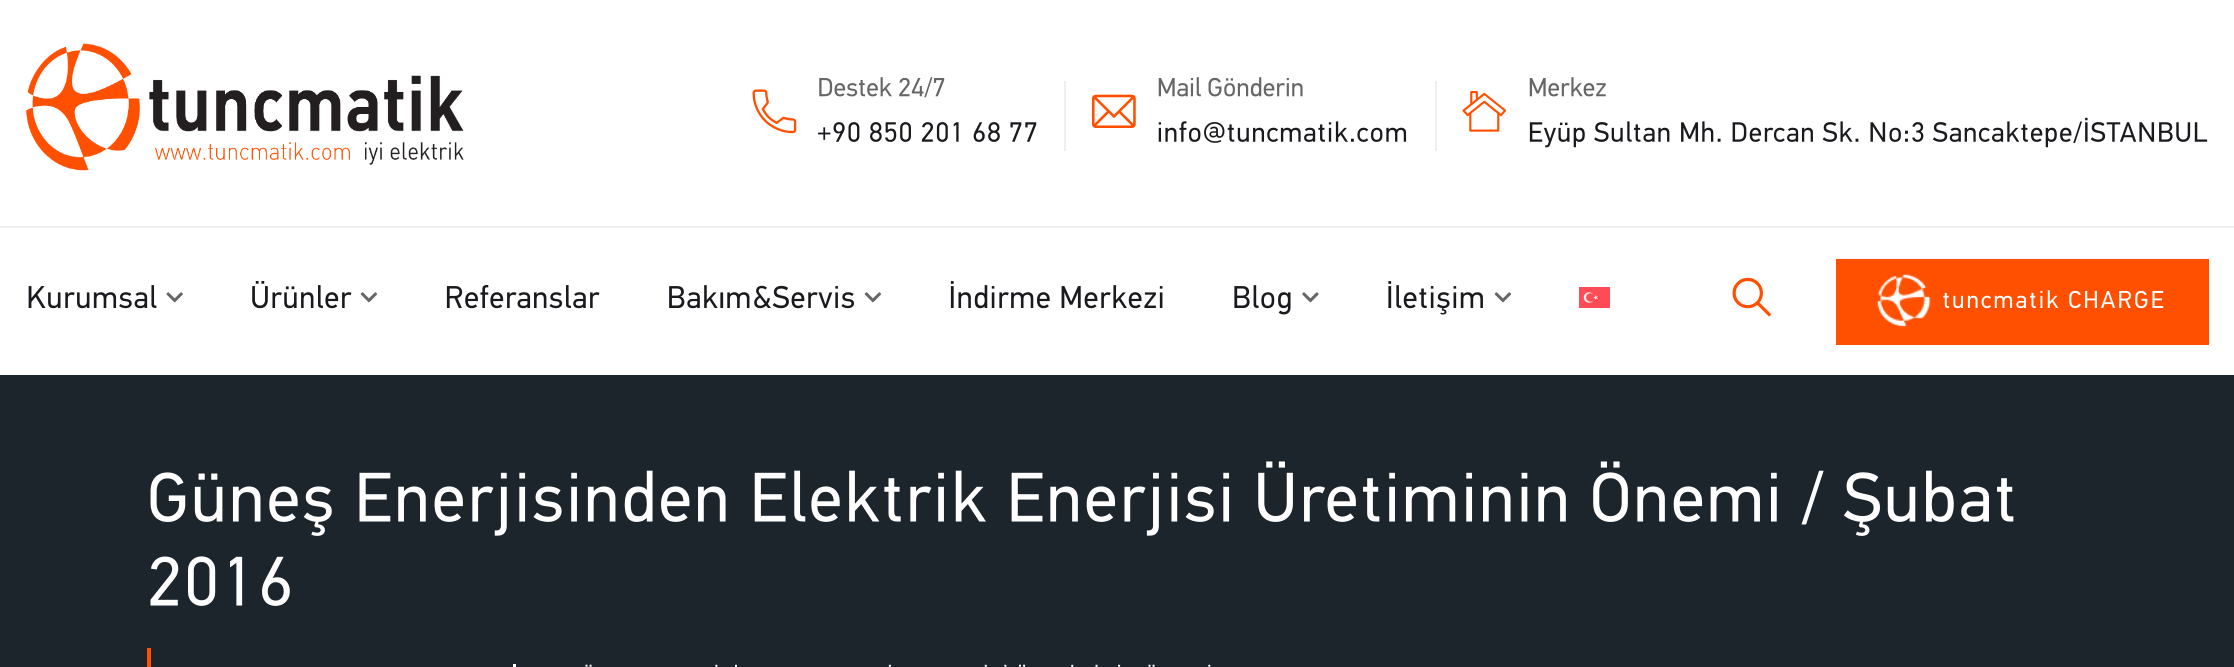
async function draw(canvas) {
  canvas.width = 2234
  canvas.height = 667
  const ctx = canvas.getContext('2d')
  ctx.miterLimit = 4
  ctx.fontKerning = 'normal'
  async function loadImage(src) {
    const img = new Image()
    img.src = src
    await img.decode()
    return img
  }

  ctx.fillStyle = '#fff'
  ctx.fillRect(0, 0, 2234, 667)
  ctx.fillStyle = '#efefef'
  ctx.fillRect(0, 226, 2234, 2)
  ctx.drawImage(await loadImage('image0.png'), 26, 43, 438, 128)
  ctx.drawImage(await loadImage('image1.png'), 752, 89, 45, 45)
  ctx.drawImage(await loadImage('image2.png'), 819, 77, 126, 21)
  ctx.drawImage(await loadImage('image3.png'), 818, 122, 219, 20)
  ctx.fillRect(1064, 81, 2, 70)
  ctx.drawImage(await loadImage('image4.png'), 1092, 94, 44, 34)
  ctx.drawImage(await loadImage('image5.png'), 1158, 77, 145, 20)
  ctx.drawImage(await loadImage('image6.png'), 1158, 121, 249, 22)
  ctx.fillRect(1435, 81, 2, 70)
  ctx.drawImage(await loadImage('image7.png'), 1462, 91, 45, 41)
  ctx.drawImage(await loadImage('image8.png'), 1529, 77, 77, 20)
  ctx.drawImage(await loadImage('image9.png'), 1529, 117, 679, 31)
  ctx.drawImage(await loadImage('image10.png'), 28, 285, 129, 24)
  ctx.drawImage(await loadImage('image11.png'), 166, 292, 17, 11)
  ctx.drawImage(await loadImage('image12.png'), 252, 281, 100, 28)
  ctx.drawImage(await loadImage('image13.png'), 360, 292, 17, 11)
  ctx.drawImage(await loadImage('image14.png'), 446, 285, 154, 24)
  ctx.drawImage(await loadImage('image15.png'), 669, 285, 186, 24)
  ctx.drawImage(await loadImage('image13.png'), 864, 292, 17, 11)
  ctx.drawImage(await loadImage('image16.png'), 950, 281, 213, 28)
  ctx.drawImage(await loadImage('image17.png'), 1234, 285, 57, 30)
  ctx.drawImage(await loadImage('image18.png'), 1302, 292, 17, 11)
  ctx.drawImage(await loadImage('image19.png'), 1388, 281, 95, 34)
  ctx.drawImage(await loadImage('image13.png'), 1494, 292, 17, 11)
  ctx.drawImage(await loadImage('image20.png'), 1579, 287, 31, 21)
  ctx.drawImage(await loadImage('image21.png'), 1732, 277, 39, 40)
  ctx.fillStyle = '#fe5000'
  ctx.fillRect(1836, 259, 373, 86)
  ctx.drawImage(await loadImage('image22.png'), 1877, 274, 54, 53)
  ctx.drawImage(await loadImage('image23.png'), 1943, 290, 221, 19)
  ctx.fillStyle = '#1c242c'
  ctx.fillRect(0, 375, 2234, 292)
  ctx.drawImage(await loadImage('image24.png'), 150, 461, 1864, 75)
  ctx.drawImage(await loadImage('image25.png'), 150, 556, 140, 50)
  ctx.fillStyle = '#fe5000'
  ctx.fillRect(147, 648, 4, 19)
  ctx.fillStyle = '#fff'
  ctx.fillRect(513, 664, 3, 3)
  ctx.drawImage(await loadImage('image26.png'), 585, 664, 626, 3)
}

draw(document.querySelector('canvas'))
